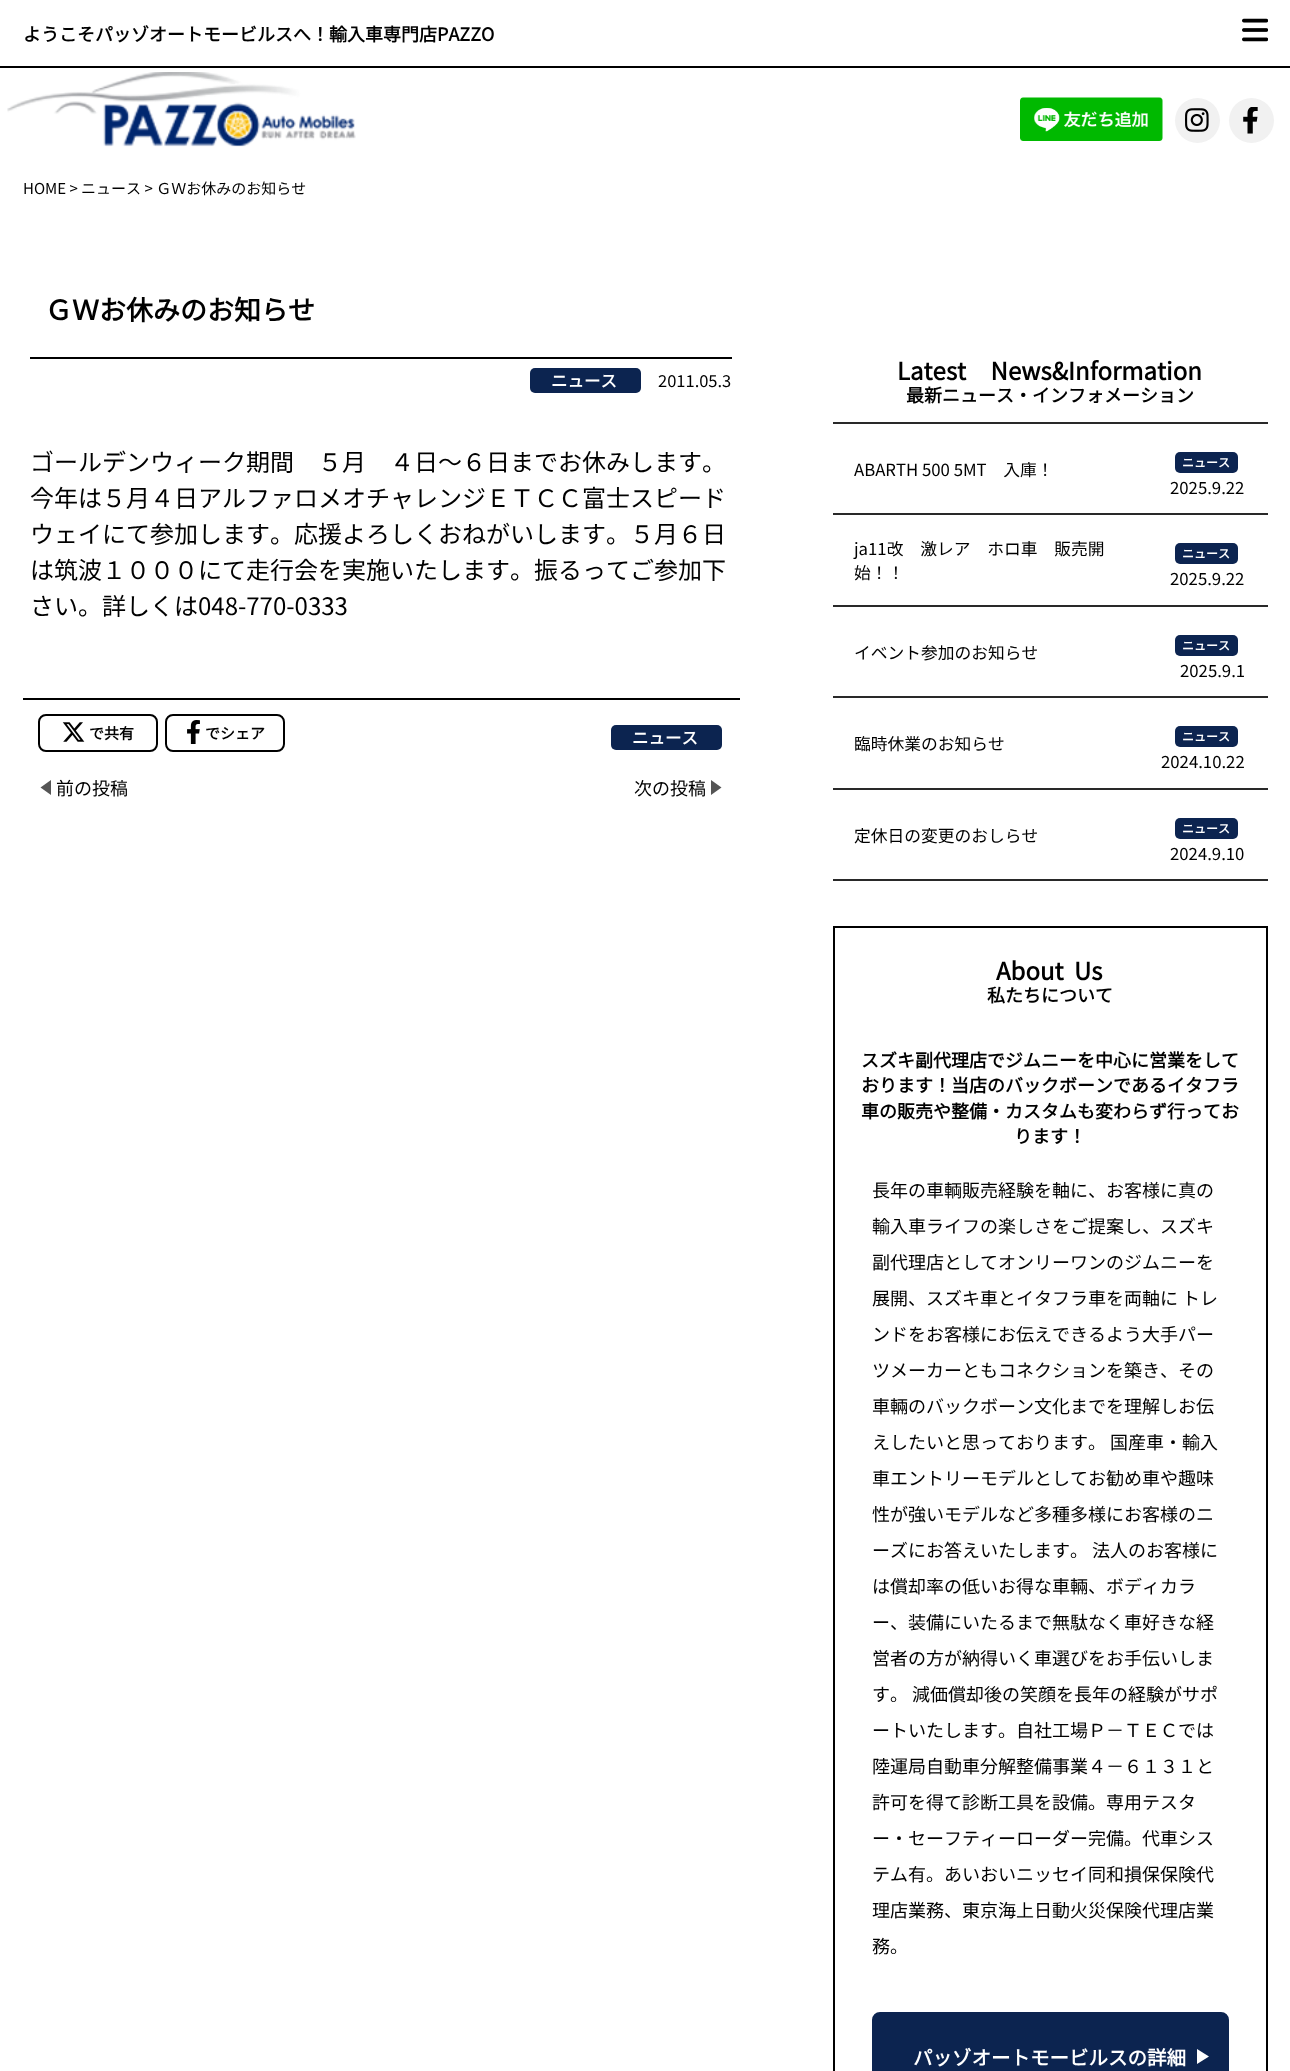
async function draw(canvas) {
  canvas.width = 1290
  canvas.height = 2071
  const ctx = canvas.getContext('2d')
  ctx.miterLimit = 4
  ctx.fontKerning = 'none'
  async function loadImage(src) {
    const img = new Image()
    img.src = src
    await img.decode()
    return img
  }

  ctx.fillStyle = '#fff'
  ctx.fillRect(0, 0, 1290, 2071)
  ctx.fillStyle = '#000'
  ctx.fillRect(0, 66, 1290, 2)
  ctx.font = 'bold 18px Noto Sans JP'
  ctx.fillText('ようこそパッゾオートモービルスへ！輸入車専門店PAZZO', 23, 41)
  ctx.drawImage(await loadImage('image0.png'), 1242, 18, 26, 24)
  ctx.drawImage(await loadImage('image1.png'), 7, 72, 349, 75)
  ctx.drawImage(await loadImage('image2.png'), 1020, 97, 143, 44)
  ctx.fillStyle = '#f1f1f1'
  ctx.beginPath()
  ctx.arc(1197.5, 120.5, 22.5, 0, 2 * Math.PI)
  ctx.fill()
  ctx.drawImage(await loadImage('image3.png'), 1185, 108, 24, 24)
  ctx.beginPath()
  ctx.arc(1251.5, 120.5, 22.5, 0, 2 * Math.PI)
  ctx.fill()
  ctx.drawImage(await loadImage('image4.png'), 1243, 107, 15, 27)
  ctx.font = '15px Noto Sans JP'
  ctx.fillStyle = '#000'
  ctx.fillText('HOME > ニュース > ＧＷお休みのお知らせ', 23, 194)
  ctx.fillRect(30, 357, 702, 2)
  ctx.font = 'bold 27px Noto Sans JP'
  ctx.fillText('ＧＷお休みのお知らせ', 45, 320)
  ctx.fillStyle = '#0c2450'
  ctx.beginPath()
  ctx.roundRect(530, 368, 111, 25, 5)
  ctx.fill()
  ctx.font = 'bold 16.5px Noto Sans JP'
  ctx.fillStyle = '#fff'
  ctx.fillText('ニュース', 551, 387)
  ctx.font = '16.5px Noto Sans JP'
  ctx.fillStyle = '#000'
  ctx.fillText('2011.05.3', 658, 387)
  ctx.font = '24px Noto Sans JP'
  ctx.fillText('ゴールデンウィーク期間　５月　４日～６日までお休みします。', 30, 471)
  ctx.fillText('今年は５月４日アルファロメオチャレンジＥＴＣＣ富士スピード', 30, 507)
  ctx.fillText('ウェイにて参加します。応援よろしくおねがいします', 30, 543)
  ctx.fillText('。５月６日', 606, 543)
  ctx.fillText('は筑波１０００にて走行会を実施いたします。振るってご参加下', 30, 579)
  ctx.fillText('さい。詳しくは048-770-0333', 30, 615)
  ctx.fillRect(23, 698, 717, 2)
  ctx.beginPath()
  ctx.roundRect(39, 715, 118, 36, 7)
  ctx.strokeStyle = '#000'
  ctx.lineWidth = 2
  ctx.stroke()
  ctx.drawImage(await loadImage('image5.png'), 62, 722, 23, 20)
  ctx.font = 'bold 15px Noto Sans JP'
  ctx.fillText('で共有', 89, 739)
  ctx.beginPath()
  ctx.roundRect(166, 715, 118, 36, 7)
  ctx.stroke()
  ctx.drawImage(await loadImage('image6.png'), 187, 720, 13, 24)
  ctx.fillText('でシェア', 205, 739)
  ctx.fillStyle = '#0c2450'
  ctx.beginPath()
  ctx.roundRect(611, 725, 111, 25, 5)
  ctx.fill()
  ctx.font = 'bold 16.5px Noto Sans JP'
  ctx.fillStyle = '#fff'
  ctx.fillText('ニュース', 632, 744)
  ctx.fillStyle = '#555'
  ctx.beginPath()
  ctx.moveTo(51, 780)
  ctx.lineTo(51, 795)
  ctx.lineTo(40.5, 787.5)
  ctx.closePath()
  ctx.fill()
  ctx.font = '18px Noto Sans JP'
  ctx.fillStyle = '#000'
  ctx.fillText('前の投稿', 56, 795)
  ctx.fillText('次の投稿', 634, 795)
  ctx.fillStyle = '#555'
  ctx.beginPath()
  ctx.moveTo(711, 795)
  ctx.lineTo(711, 780)
  ctx.lineTo(721.5, 787.5)
  ctx.closePath()
  ctx.fill()
  ctx.wordSpacing = '19px'
  ctx.font = 'bold 24px Noto Sans JP'
  ctx.fillStyle = '#000'
  ctx.fillText('Latest News&Information', 897, 380)
  ctx.wordSpacing = '0px'
  ctx.font = 'bold 18px Noto Sans JP'
  ctx.fillText('最新ニュース・インフォメーション', 906, 402)
  ctx.fillStyle = '#292929'
  ctx.fillRect(833, 422, 435, 2)
  ctx.fillRect(833, 513, 435, 2)
  ctx.font = '16.75px Noto Sans JP'
  ctx.fillStyle = '#000'
  ctx.fillText('ABARTH 500 5MT　入庫！', 854, 476)
  ctx.fillStyle = '#0c2450'
  ctx.beginPath()
  ctx.roundRect(1175, 452, 63, 21, 5)
  ctx.fill()
  ctx.font = 'bold 12px Noto Sans JP'
  ctx.fillStyle = '#fff'
  ctx.fillText('ニュース', 1182, 467)
  ctx.font = '16.75px Noto Sans JP'
  ctx.fillStyle = '#000'
  ctx.fillText('2025.9.22', 1170, 494)
  ctx.fillStyle = '#292929'
  ctx.fillRect(833, 605, 435, 2)
  ctx.fillStyle = '#000'
  ctx.fillText('ja11改　激レア　ホロ車　販売開', 854, 555)
  ctx.fillText('始！！', 854, 579)
  ctx.fillStyle = '#0c2450'
  ctx.beginPath()
  ctx.roundRect(1175, 543, 63, 21, 5)
  ctx.fill()
  ctx.font = 'bold 12px Noto Sans JP'
  ctx.fillStyle = '#fff'
  ctx.fillText('ニュース', 1182, 558)
  ctx.font = '16.75px Noto Sans JP'
  ctx.fillStyle = '#000'
  ctx.fillText('2025.9.22', 1170, 585)
  ctx.fillStyle = '#292929'
  ctx.fillRect(833, 696, 435, 2)
  ctx.fillStyle = '#000'
  ctx.fillText('イベント参加のお知らせ', 854, 659)
  ctx.fillStyle = '#0c2450'
  ctx.beginPath()
  ctx.roundRect(1175, 635, 63, 21, 5)
  ctx.fill()
  ctx.font = 'bold 12px Noto Sans JP'
  ctx.fillStyle = '#fff'
  ctx.fillText('ニュース', 1182, 650)
  ctx.font = '16.75px Noto Sans JP'
  ctx.fillStyle = '#000'
  ctx.fillText('2025.9.1', 1180, 677)
  ctx.fillStyle = '#292929'
  ctx.fillRect(833, 788, 435, 2)
  ctx.fillStyle = '#000'
  ctx.fillText('臨時休業のお知らせ', 854, 750)
  ctx.fillStyle = '#0c2450'
  ctx.beginPath()
  ctx.roundRect(1175, 726, 63, 21, 5)
  ctx.fill()
  ctx.font = 'bold 12px Noto Sans JP'
  ctx.fillStyle = '#fff'
  ctx.fillText('ニュース', 1182, 741)
  ctx.font = '16.75px Noto Sans JP'
  ctx.fillStyle = '#000'
  ctx.fillText('2024.10.22', 1161, 768)
  ctx.fillStyle = '#292929'
  ctx.fillRect(833, 879, 435, 2)
  ctx.fillStyle = '#000'
  ctx.fillText('定休日の変更のおしらせ', 854, 842)
  ctx.fillStyle = '#0c2450'
  ctx.beginPath()
  ctx.roundRect(1175, 818, 63, 21, 5)
  ctx.fill()
  ctx.font = 'bold 12px Noto Sans JP'
  ctx.fillStyle = '#fff'
  ctx.fillText('ニュース', 1182, 833)
  ctx.font = '16.75px Noto Sans JP'
  ctx.fillStyle = '#000'
  ctx.fillText('2024.9.10', 1170, 860)
  ctx.strokeRect(834, 927, 433, 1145)
  ctx.wordSpacing = '5px'
  ctx.font = 'bold 24px Noto Sans JP'
  ctx.fillText('About Us', 996, 980)
  ctx.wordSpacing = '0px'
  ctx.font = 'bold 18px Noto Sans JP'
  ctx.fillText('私たちについて', 987, 1002)
  ctx.fillText('スズキ副代理店でジムニーを中心に営業をして', 861, 1067)
  ctx.fillText('おります！当店のバックボーンであるイタフラ', 861, 1092)
  ctx.fillText('車の販売や整備・カスタムも変わらず行ってお', 861, 1118)
  ctx.fillText('ります！', 1014, 1143)
  ctx.font = '18px Noto Sans JP'
  ctx.fillText('長年の車輌販売経験を軸に、お客様に真の', 872, 1197)
  ctx.fillText('輸入車ライフの楽しさをご提案し、スズキ', 872, 1233)
  ctx.fillText('副代理店としてオンリーワンのジムニーを', 872, 1269)
  ctx.fillText('展開、スズキ車とイタフラ車を両軸に トレ', 872, 1305)
  ctx.fillText('ンドをお客様にお伝えできるよう大手パー', 872, 1341)
  ctx.fillText('ツメーカーともコネクションを築き、その', 872, 1377)
  ctx.fillText('車輛のバックボーン文化までを理解しお伝', 872, 1413)
  ctx.fillText('えしたいと思っております。 国産車・輸入', 872, 1449)
  ctx.fillText('車エントリーモデルとしてお勧め車や趣味', 872, 1485)
  ctx.fillText('性が強いモデルなど多種多様にお客様のニ', 872, 1521)
  ctx.fillText('ーズにお答えいたします。 法人のお客様に', 872, 1557)
  ctx.fillText('は償却率の低いお得な車輛、ボディカラ', 872, 1593)
  ctx.fillText('ー、装備にいたるまで無駄なく車好きな経', 872, 1629)
  ctx.fillText('営者の方が納得いく車選びをお手伝いしま', 872, 1665)
  ctx.fillText('す。 減価償却後の笑顔を長年の経験がサポ', 872, 1701)
  ctx.fillText('ートいたします。自社工場Ｐ－ＴＥＣでは', 872, 1737)
  ctx.fillText('陸運局自動車分解整備事業４－６１３１と', 872, 1773)
  ctx.fillText('許可を得て診断工具を設備。専用テスタ', 872, 1809)
  ctx.fillText('ー・セーフティーローダー完備。代車シス', 872, 1845)
  ctx.fillText('テム有。あいおいニッセイ同和損保保険代', 872, 1881)
  ctx.fillText('理店業務、東京海上日動火災保険代理店業', 872, 1917)
  ctx.fillText('務。', 872, 1953)
  ctx.fillStyle = '#0c2450'
  ctx.beginPath()
  ctx.roundRect(873, 2013, 355, 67, 7)
  ctx.fill()
  ctx.strokeStyle = '#0c2450'
  ctx.stroke()
  ctx.font = 'bold 19.5px Noto Sans JP'
  ctx.fillStyle = '#fff'
  ctx.fillText('パッゾオートモービルスの詳細', 913, 2065)
  ctx.beginPath()
  ctx.moveTo(1197, 2064)
  ctx.lineTo(1197, 2049)
  ctx.lineTo(1209, 2056.5)
  ctx.closePath()
  ctx.fill()
}

draw(document.querySelector('canvas'))
